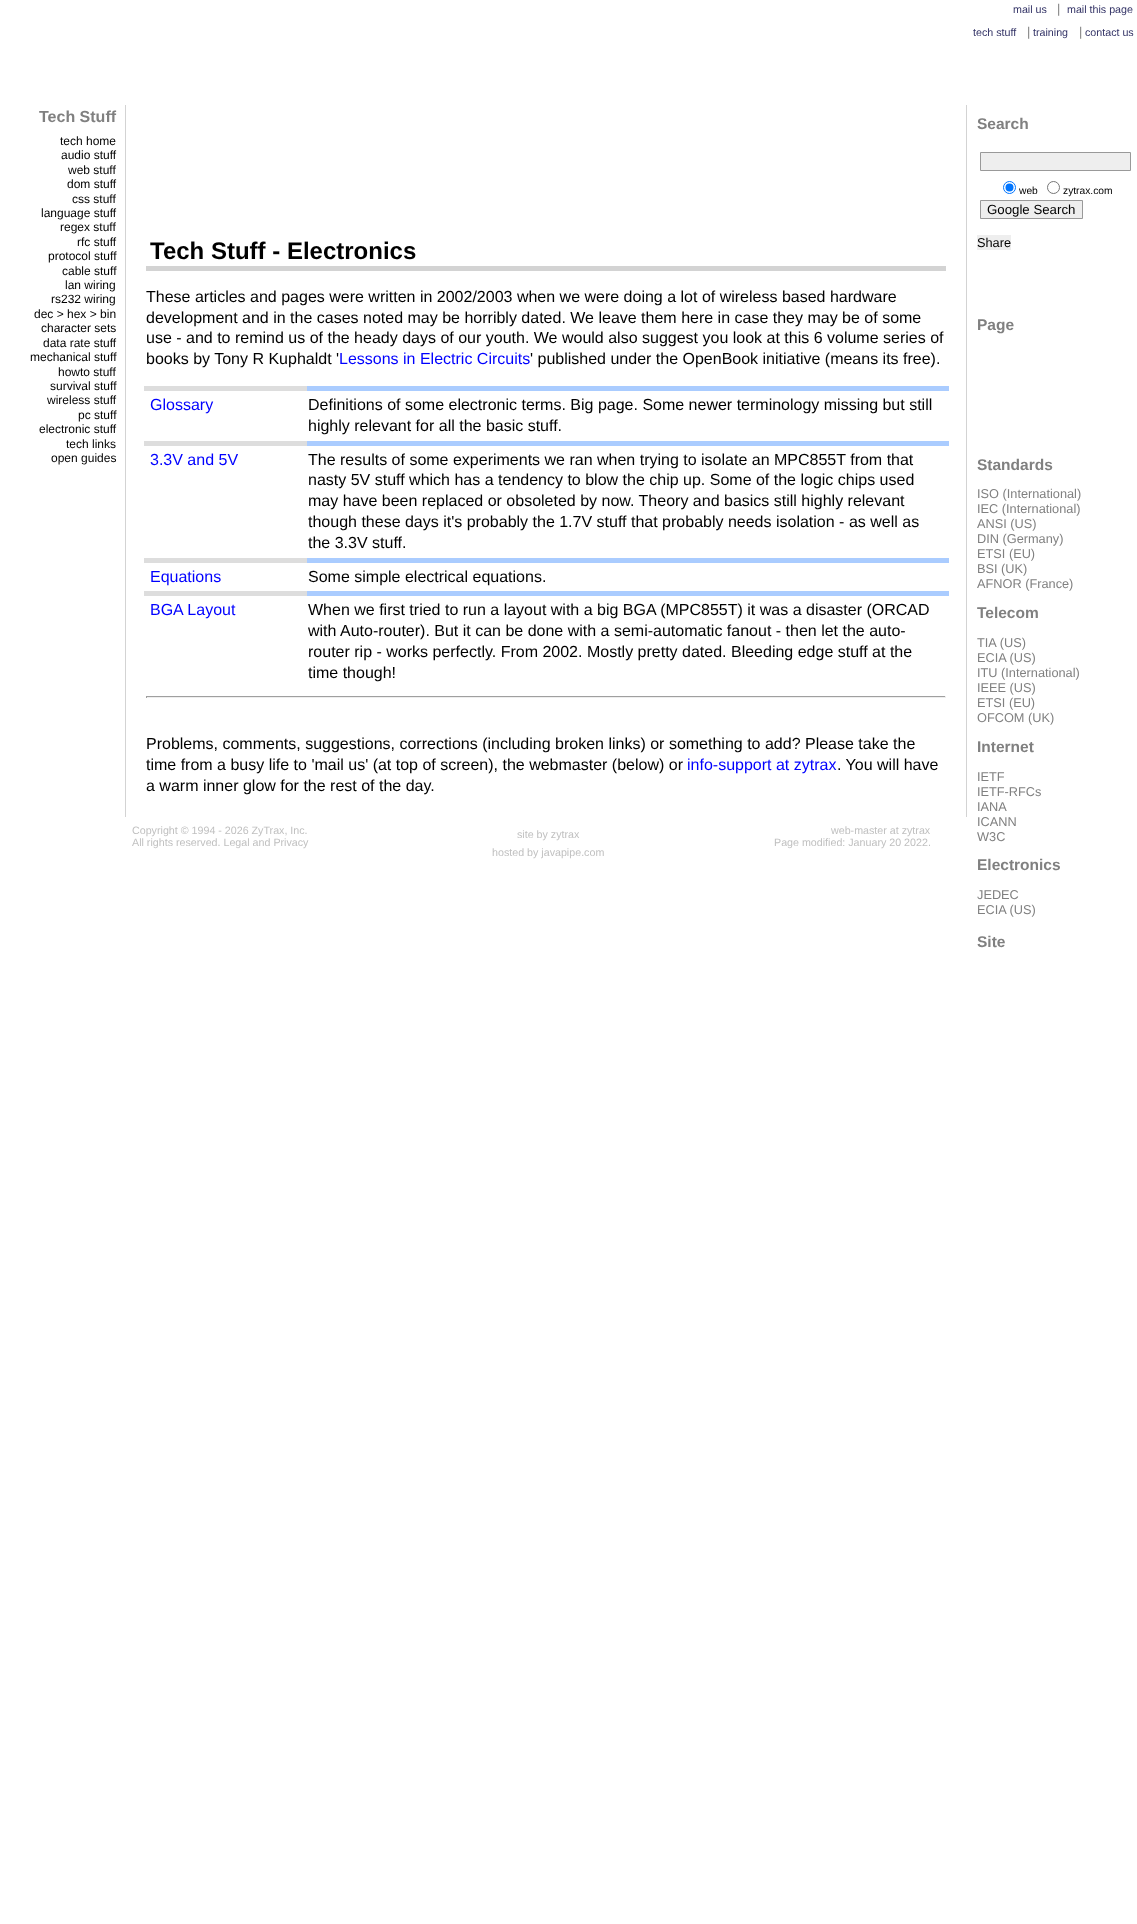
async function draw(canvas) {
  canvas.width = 1137
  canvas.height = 1924
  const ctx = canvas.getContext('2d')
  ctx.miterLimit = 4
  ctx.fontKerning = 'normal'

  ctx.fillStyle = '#fff'
  ctx.fillRect(0, 0, 1137, 1924)
  ctx.font = '10.7px Liberation Sans'
  ctx.fillStyle = '#336'
  ctx.fillText('mail us', 1013, 13)
  ctx.font = '12.75px Liberation Sans'
  ctx.fillStyle = '#808080'
  ctx.fillText('|', 1057, 13)
  ctx.font = '10.7px Liberation Sans'
  ctx.fillStyle = '#336'
  ctx.fillText('mail this page', 1067, 13)
  ctx.fillText('tech stuff', 973, 36)
  ctx.font = '12.75px Liberation Sans'
  ctx.fillStyle = '#808080'
  ctx.fillText('|', 1027, 36)
  ctx.font = '10.7px Liberation Sans'
  ctx.fillStyle = '#336'
  ctx.fillText('training', 1033, 36)
  ctx.font = '12.75px Liberation Sans'
  ctx.fillStyle = '#808080'
  ctx.fillText('|', 1079, 36)
  ctx.font = '10.7px Liberation Sans'
  ctx.fillStyle = '#336'
  ctx.fillText('contact us', 1085, 36)
  ctx.font = 'bold 16px Liberation Sans'
  ctx.fillStyle = '#808080'
  ctx.fillText('Tech Stuff', 39, 122)
  ctx.font = '12px Liberation Sans'
  ctx.fillStyle = '#000'
  ctx.fillText('tech home', 60, 145)
  ctx.fillText('audio stuff', 61, 159)
  ctx.fillText('web stuff', 68, 174)
  ctx.fillText('dom stuff', 67, 188)
  ctx.fillText('css stuff', 72, 203)
  ctx.fillText('language stuff', 41, 217)
  ctx.fillText('regex stuff', 60, 231)
  ctx.fillText('rfc stuff', 77, 246)
  ctx.fillText('protocol stuff', 48, 260)
  ctx.fillText('cable stuff', 62, 275)
  ctx.fillText('lan wiring', 65, 289)
  ctx.fillText('rs232 wiring', 51, 303)
  ctx.fillText('dec > hex > bin', 34, 318)
  ctx.fillText('character sets', 41, 332)
  ctx.fillText('data rate stuff', 43, 347)
  ctx.fillText('mechanical stuff', 30, 361)
  ctx.fillText('howto stuff', 58, 376)
  ctx.fillText('survival stuff', 50, 390)
  ctx.fillText('wireless stuff', 47, 404)
  ctx.fillText('pc stuff', 78, 419)
  ctx.fillText('electronic stuff', 39, 433)
  ctx.fillText('tech links', 66, 448)
  ctx.fillText('open guides', 51, 462)
  ctx.fillStyle = '#d3d3d3'
  ctx.fillRect(966, 105, 1, 712)
  ctx.fillRect(125, 105, 1, 712)
  ctx.fillRect(146, 266, 800, 5)
  ctx.font = 'bold 24px Liberation Sans'
  ctx.fillStyle = '#000'
  ctx.fillText('Tech Stuff - Electronics', 150, 259)
  ctx.font = '16px Liberation Sans'
  ctx.fillText('These articles and pages were written in 2002/2003 when we were doing a lot of wireless based hardware', 146, 302)
  ctx.fillText('development and in the cases noted may be horribly dated. We leave them here in case they may be of some', 146, 323)
  ctx.fillText('use - and to remind us of the heady days of our youth. We would also suggest you look at this 6 volume series of', 146, 343)
  ctx.fillText('books by Tony R Kuphaldt \'', 146, 364)
  ctx.fillStyle = '#00f'
  ctx.fillText('Lessons in Electric Circuits', 339, 364)
  ctx.fillStyle = '#000'
  ctx.fillText('\' published under the OpenBook initiative (means its free).', 530, 364)
  ctx.fillStyle = '#acf'
  ctx.fillRect(302, 386, 647, 5)
  ctx.fillStyle = '#ddd'
  ctx.fillRect(144, 386, 163, 5)
  ctx.fillStyle = '#00f'
  ctx.fillText('Glossary', 150, 410)
  ctx.fillStyle = '#000'
  ctx.fillText('Definitions of some electronic terms. Big page. Some newer terminology missing but still', 308, 410)
  ctx.fillText('highly relevant for all the basic stuff.', 308, 431)
  ctx.fillStyle = '#acf'
  ctx.fillRect(302, 441, 647, 5)
  ctx.fillStyle = '#ddd'
  ctx.fillRect(144, 441, 163, 5)
  ctx.fillStyle = '#00f'
  ctx.fillText('3.3V and 5V', 150, 465)
  ctx.fillStyle = '#000'
  ctx.fillText('The results of some experiments we ran when trying to isolate an MPC855T from that', 308, 465)
  ctx.fillText('nasty 5V stuff which has a tendency to blow the chip up. Some of the logic chips used', 308, 485)
  ctx.fillText('may have been replaced or obsoleted by now. Theory and basics still highly relevant', 308, 506)
  ctx.fillText('though these days it\'s probably the 1.7V stuff that probably needs isolation - as well as', 308, 527)
  ctx.fillText('the 3.3V stuff.', 308, 548)
  ctx.fillStyle = '#acf'
  ctx.fillRect(302, 558, 647, 5)
  ctx.fillStyle = '#ddd'
  ctx.fillRect(144, 558, 163, 5)
  ctx.fillStyle = '#00f'
  ctx.fillText('Equations', 150, 582)
  ctx.fillStyle = '#000'
  ctx.fillText('Some simple electrical equations.', 308, 582)
  ctx.fillStyle = '#acf'
  ctx.fillRect(302, 591, 647, 5)
  ctx.fillStyle = '#ddd'
  ctx.fillRect(144, 591, 163, 5)
  ctx.fillStyle = '#00f'
  ctx.fillText('BGA Layout', 150, 615)
  ctx.fillStyle = '#000'
  ctx.fillText('When we first tried to run a layout with a big BGA (MPC855T) it was a disaster (ORCAD', 308, 615)
  ctx.fillText('with Auto-router). But it can be done with a semi-automatic fanout - then let the auto-', 308, 636)
  ctx.fillText('router rip - works perfectly. From 2002. Mostly pretty dated. Bleeding edge stuff at the', 308, 657)
  ctx.fillText('time though!', 308, 678)
  ctx.fillStyle = '#9f9f9f'
  ctx.fillRect(146, 696, 800, 1)
  ctx.fillStyle = '#eee'
  ctx.fillRect(945, 696, 1, 2)
  ctx.fillRect(146, 697, 800, 1)
  ctx.fillStyle = '#9f9f9f'
  ctx.fillRect(146, 696, 1, 2)
  ctx.fillStyle = '#000'
  ctx.fillText('Problems, comments, suggestions, corrections (including broken links) or something to add? Please take the', 146, 749)
  ctx.fillText('time from a busy life to \'mail us\' (at top of screen), the webmaster (below) or', 146, 770)
  ctx.fillStyle = '#00f'
  ctx.fillText('info-support at zytrax', 687, 770)
  ctx.fillStyle = '#000'
  ctx.fillText('. You will have', 837, 770)
  ctx.fillText('a warm inner glow for the rest of the day.', 146, 791)
  ctx.font = 'bold 15.5px Liberation Sans'
  ctx.fillStyle = '#808080'
  ctx.fillText('Search', 977, 129)
  ctx.fillStyle = '#eee'
  ctx.beginPath()
  ctx.rect(980.5, 152.5, 150, 18)
  ctx.fill()
  ctx.strokeStyle = '#999'
  ctx.stroke()
  ctx.beginPath()
  ctx.arc(1009.5, 187.5, 6, 0, 2 * Math.PI)
  ctx.strokeStyle = '#0075ff'
  ctx.stroke()
  ctx.fillStyle = '#0075ff'
  ctx.beginPath()
  ctx.arc(1009.5, 187.5, 4, 0, 2 * Math.PI)
  ctx.fill()
  ctx.font = '10.25px Liberation Sans'
  ctx.fillStyle = '#000'
  ctx.fillText('web', 1019, 194)
  ctx.beginPath()
  ctx.arc(1053.5, 187.5, 6, 0, 2 * Math.PI)
  ctx.strokeStyle = '#767676'
  ctx.stroke()
  ctx.fillText('zytrax.com', 1063, 194)
  ctx.fillStyle = '#eee'
  ctx.beginPath()
  ctx.rect(980.5, 200.5, 102, 18)
  ctx.fill()
  ctx.strokeStyle = '#999'
  ctx.stroke()
  ctx.font = '13.25px Liberation Sans'
  ctx.fillStyle = '#000'
  ctx.fillText('Google Search', 987, 214)
  ctx.fillStyle = '#eee'
  ctx.fillRect(977, 235, 34, 15)
  ctx.font = '12.75px Liberation Sans'
  ctx.fillStyle = '#000'
  ctx.fillText('Share', 977, 247)
  ctx.font = 'bold 15.5px Liberation Sans'
  ctx.fillStyle = '#808080'
  ctx.fillText('Page', 977, 330)
  ctx.fillText('Standards', 977, 470)
  ctx.font = '12.75px Liberation Sans'
  ctx.fillText('ISO (International)', 977, 498)
  ctx.fillText('IEC (International)', 977, 513)
  ctx.fillText('ANSI (US)', 977, 528)
  ctx.fillText('DIN (Germany)', 977, 543)
  ctx.fillText('ETSI (EU)', 977, 558)
  ctx.fillText('BSI (UK)', 977, 573)
  ctx.fillText('AFNOR (France)', 977, 588)
  ctx.font = 'bold 15.5px Liberation Sans'
  ctx.fillText('Telecom', 977, 618)
  ctx.font = '12.75px Liberation Sans'
  ctx.fillText('TIA (US)', 977, 647)
  ctx.fillText('ECIA (US)', 977, 662)
  ctx.fillText('ITU (International)', 977, 677)
  ctx.fillText('IEEE (US)', 977, 692)
  ctx.fillText('ETSI (EU)', 977, 707)
  ctx.fillText('OFCOM (UK)', 977, 722)
  ctx.font = 'bold 15.5px Liberation Sans'
  ctx.fillText('Internet', 977, 752)
  ctx.font = '12.75px Liberation Sans'
  ctx.fillText('IETF', 977, 781)
  ctx.fillText('IETF-RFCs', 977, 796)
  ctx.fillText('IANA', 977, 811)
  ctx.fillText('ICANN', 977, 826)
  ctx.fillText('W3C', 977, 841)
  ctx.font = 'bold 15.5px Liberation Sans'
  ctx.fillText('Electronics', 977, 870)
  ctx.font = '12.75px Liberation Sans'
  ctx.fillText('JEDEC', 977, 899)
  ctx.fillText('ECIA (US)', 977, 914)
  ctx.font = 'bold 15.5px Liberation Sans'
  ctx.fillText('Site', 977, 947)
  ctx.font = '10.7px Liberation Sans'
  ctx.fillStyle = '#c0c0c0'
  ctx.fillText('Copyright © 1994 - 2026 ZyTrax, Inc.', 132, 834)
  ctx.fillText('All rights reserved. Legal and Privacy', 132, 846)
  ctx.fillText('site by zytrax', 517, 838)
  ctx.fillText('hosted by javapipe.com', 492, 856)
  ctx.fillText('web-master at zytrax', 831, 834)
  ctx.fillText('Page modified: January 20 2022.', 774, 846)
}

draw(document.querySelector('canvas'))
